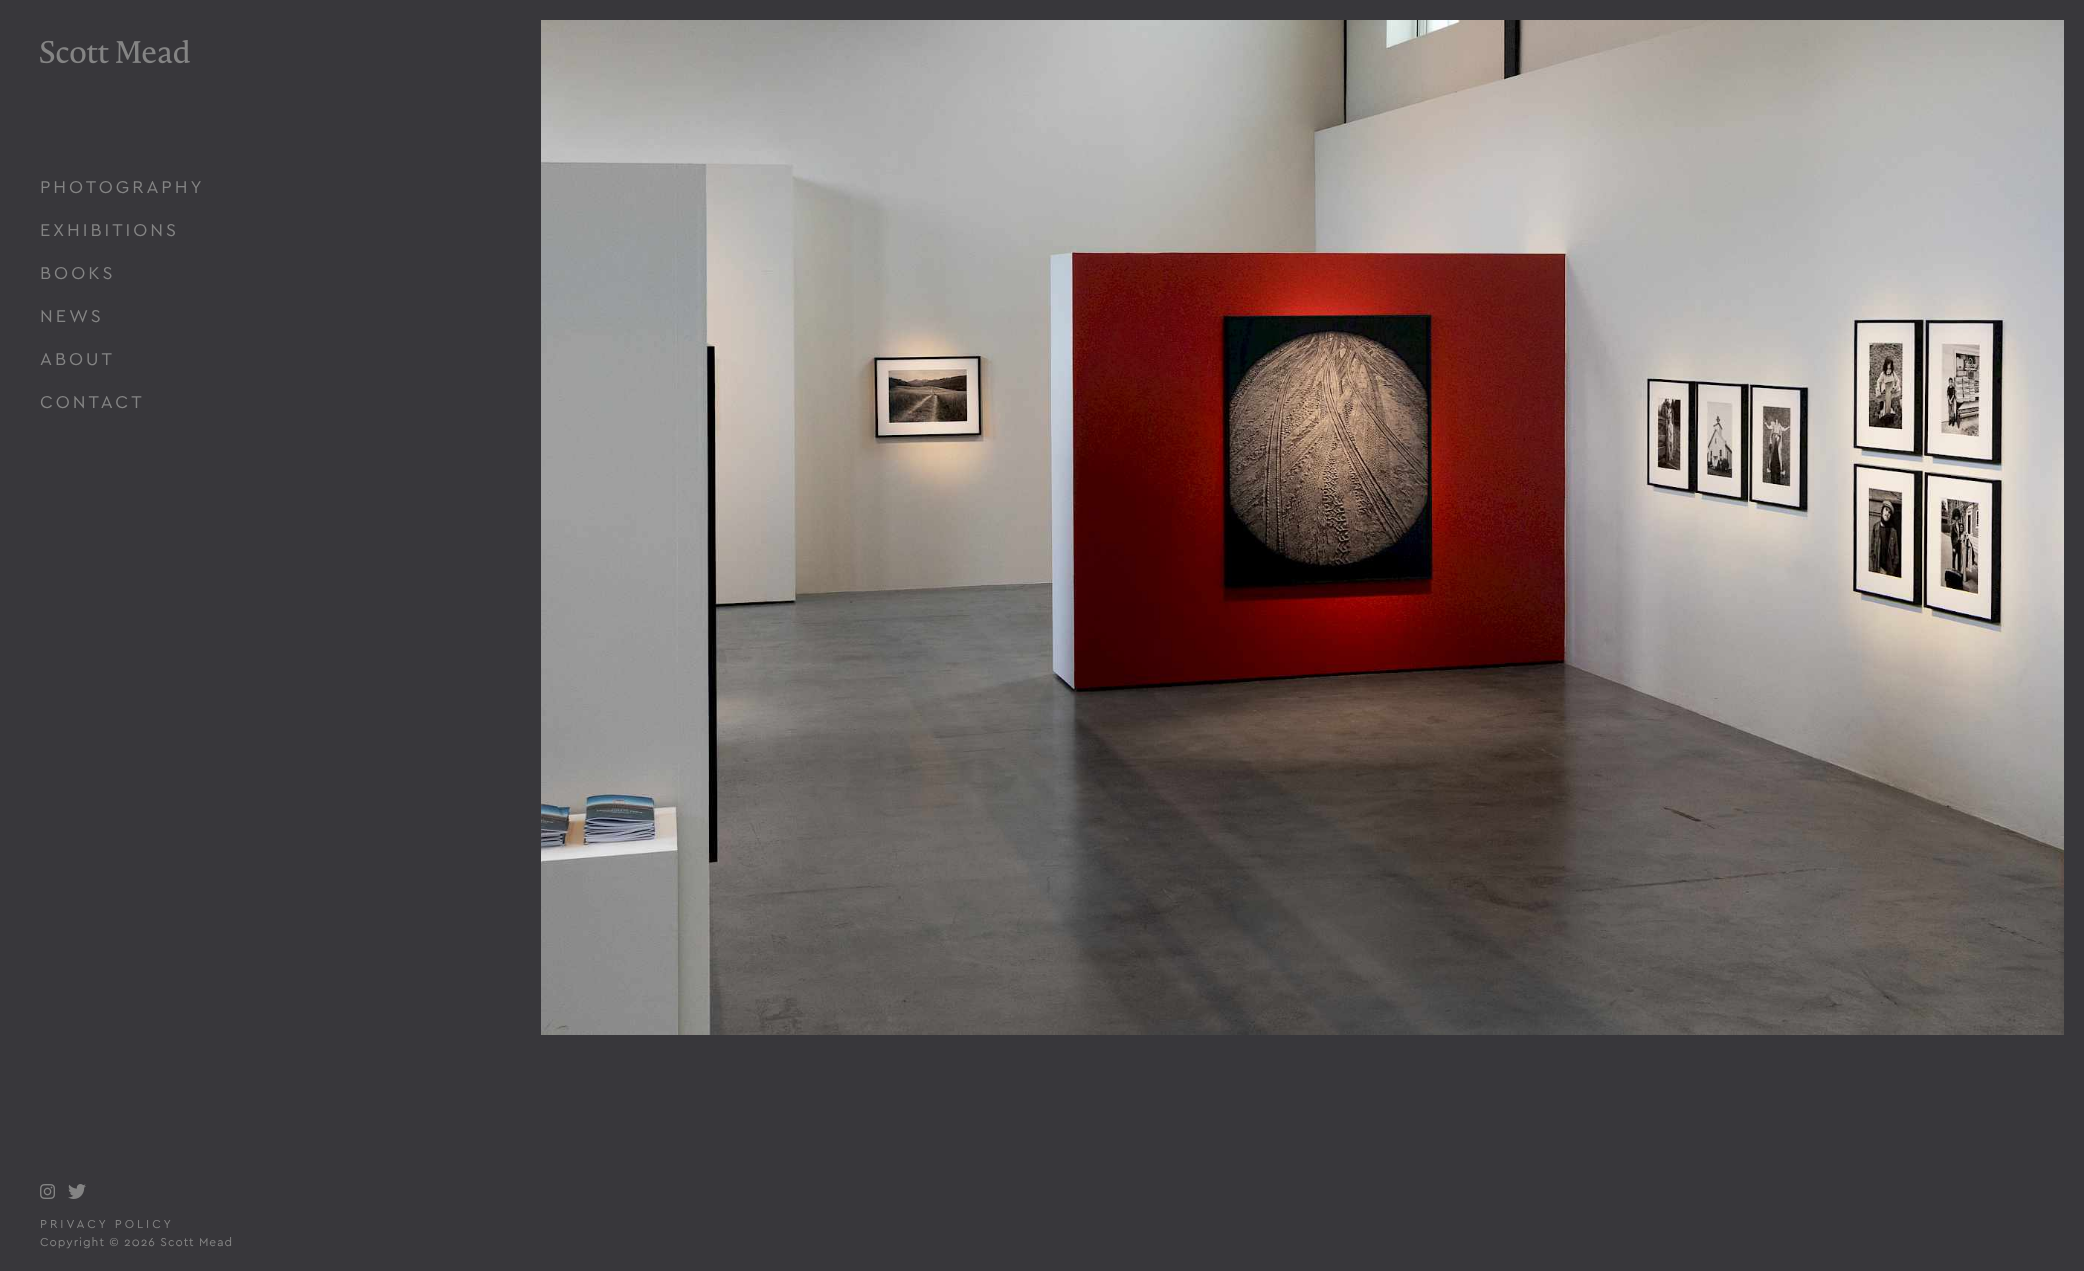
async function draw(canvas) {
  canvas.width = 2084
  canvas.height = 1271
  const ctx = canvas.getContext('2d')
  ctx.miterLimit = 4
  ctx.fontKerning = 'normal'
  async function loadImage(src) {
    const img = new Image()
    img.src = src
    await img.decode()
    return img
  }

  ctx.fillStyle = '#38373b'
  ctx.fillRect(0, 0, 2084, 1271)
  ctx.drawImage(await loadImage('image0.png'), 40, 40, 150, 24)
  ctx.letterSpacing = '3px'
  ctx.font = '18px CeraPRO'
  ctx.fillStyle = '#848484'
  ctx.fillText('PHOTOGRAPHY', 40, 193)
  ctx.fillText('EXHIBITIONS', 40, 236)
  ctx.fillText('BOOKS', 40, 279)
  ctx.fillText('NEWS', 40, 322)
  ctx.fillText('ABOUT', 40, 365)
  ctx.fillText('CONTACT', 40, 408)
  ctx.drawImage(await loadImage('image1.png'), 40, 1184, 15, 15)
  ctx.drawImage(await loadImage('image2.png'), 68, 1184, 18, 15)
  ctx.font = '12px CeraPRO'
  ctx.fillText('PRIVACY POLICY', 40, 1228)
  ctx.letterSpacing = '1px'
  ctx.fillText('Copyright © 2026 Scott Mead', 40, 1246)
  ctx.drawImage(await loadImage('image3.png'), 541, 20, 1523, 1015)
}

draw(document.querySelector('canvas'))
